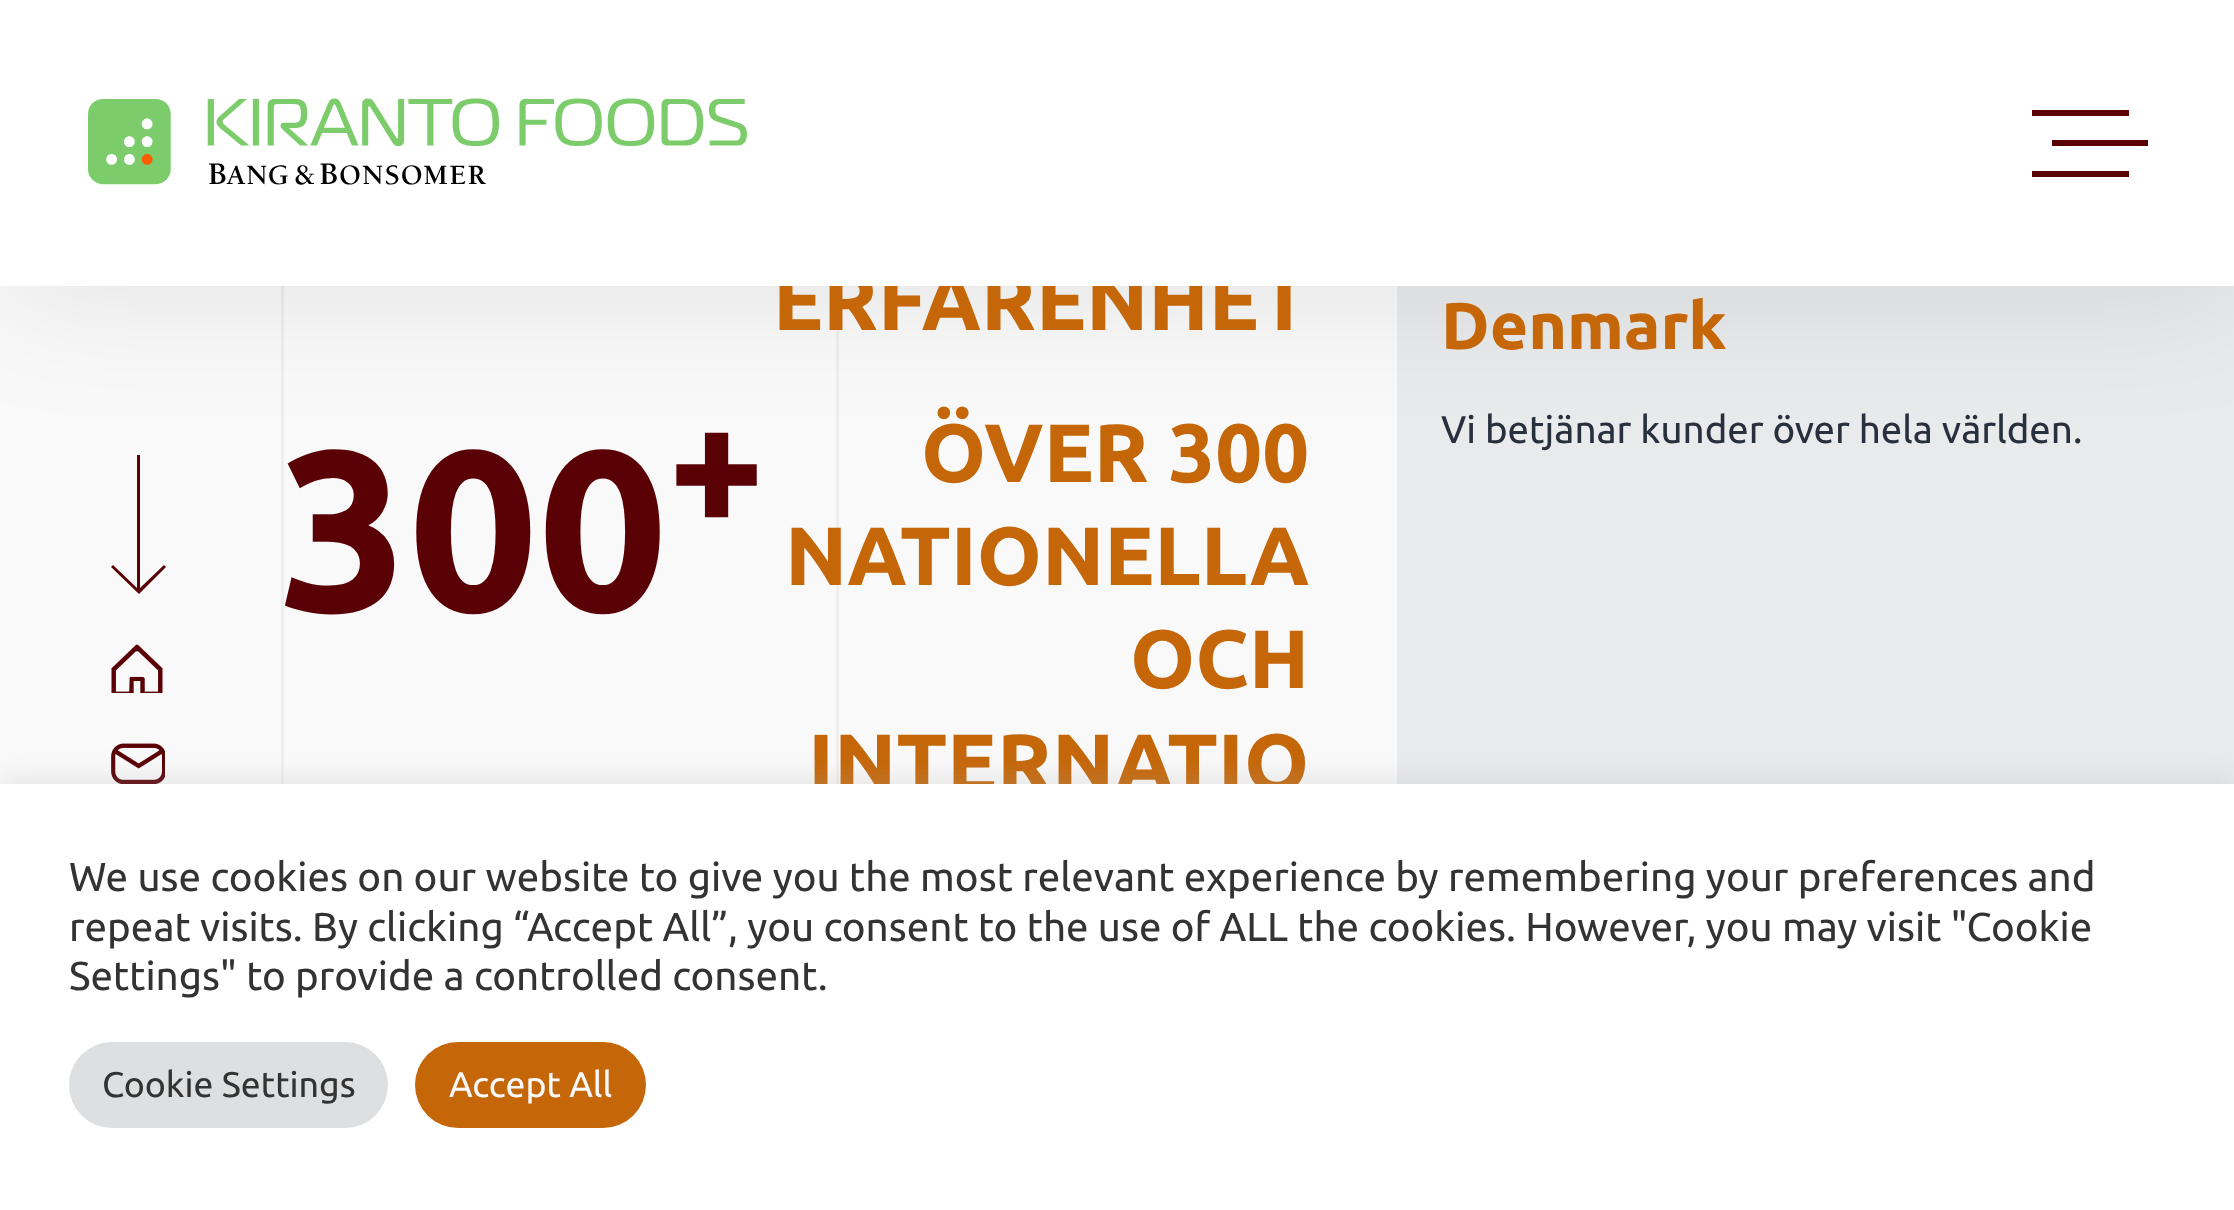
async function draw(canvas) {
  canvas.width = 2234
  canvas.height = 1210
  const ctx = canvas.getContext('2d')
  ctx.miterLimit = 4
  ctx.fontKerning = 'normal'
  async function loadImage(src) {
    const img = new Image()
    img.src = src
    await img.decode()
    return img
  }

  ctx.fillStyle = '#f9f9f9'
  ctx.fillRect(0, 0, 2234, 1210)
  ctx.fillStyle = '#efefef'
  ctx.fillRect(836, 286, 3, 498)
  ctx.fillRect(281, 286, 3, 498)
  ctx.fillStyle = '#e9eaec'
  ctx.fillRect(1397, 286, 837, 498)
  ctx.fillStyle = '#590105'
  ctx.beginPath()
  ctx.moveTo(140, 588)
  ctx.lineTo(164, 565)
  ctx.lineTo(166, 567)
  ctx.lineTo(139, 594)
  ctx.lineTo(111, 567)
  ctx.lineTo(113, 565)
  ctx.lineTo(137, 588)
  ctx.lineTo(137, 455)
  ctx.lineTo(140, 455)
  ctx.closePath()
  ctx.fill('evenodd')
  ctx.fillStyle = '#0000001a'
  ctx.filter = 'blur(69px)'
  ctx.beginPath()
  ctx.rect(0, 0, 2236, 286)
  ctx.fill()
  ctx.filter = 'none'
  ctx.font = 'bold 82.5px Ubuntu'
  ctx.fillStyle = '#c56709'
  ctx.fillText('ERFARENHET', 773, 330)
  ctx.fillStyle = '#fff'
  ctx.fillRect(0, 0, 2234, 286)
  ctx.drawImage(await loadImage('image0.png'), 88, 98, 659, 87)
  ctx.fillStyle = '#590105'
  ctx.fillRect(2052, 140, 96, 6)
  ctx.fillRect(2032, 110, 97, 6)
  ctx.fillRect(2032, 171, 97, 6)
  ctx.font = 'bold 228px Ubuntu'
  ctx.fillText('300', 279, 611)
  ctx.font = 'bold 171px Ubuntu'
  ctx.fillText('+', 668, 526)
  ctx.font = 'bold 82.5px Ubuntu'
  ctx.fillStyle = '#c56709'
  ctx.fillText('ÖVER 300', 921, 482)
  ctx.fillText('NATIONELLA', 785, 585)
  ctx.fillText('OCH', 1130, 688)
  ctx.fillText('INTERNATIO', 808, 792)
  ctx.font = 'bold 66px Ubuntu'
  ctx.fillText('Denmark', 1441, 349)
  ctx.font = '38.5px Ubuntu'
  ctx.fillStyle = '#28303d'
  ctx.fillText('Vi betjänar kunder över hela världen.', 1441, 443)
  ctx.drawImage(await loadImage('image1.png'), 111, 644, 52, 49)
  ctx.drawImage(await loadImage('image2.png'), 111, 743, 54, 41)
  ctx.fillStyle = '#acabab4d'
  ctx.filter = 'blur(14px)'
  ctx.beginPath()
  ctx.rect(0, 781, 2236, 426)
  ctx.fill()
  ctx.filter = 'none'
  ctx.fillStyle = '#fff'
  ctx.fillRect(0, 784, 2234, 426)
  ctx.font = '40.33px Ubuntu'
  ctx.fillStyle = '#333'
  ctx.fillText('We use cookies on our website to give you the most relevant experience by remembering your preferences and', 69, 891)
  ctx.fillText('repeat visits. By clicking “Accept All”, you consent to the use of ALL the cookies. However, you may visit "Cookie', 69, 941)
  ctx.fillText('Settings" to provide a controlled consent.', 69, 990)
  ctx.fillStyle = '#dedfe0'
  ctx.beginPath()
  ctx.roundRect(69, 1042, 319, 86, 43)
  ctx.fill()
  ctx.font = '35.75px Ubuntu'
  ctx.fillStyle = '#333'
  ctx.fillText('Cookie Settings', 102, 1097)
  ctx.fillStyle = '#c56709'
  ctx.beginPath()
  ctx.roundRect(415, 1042, 231, 86, 43)
  ctx.fill()
  ctx.fillStyle = '#f9f9f9'
  ctx.fillText('Accept All', 449, 1097)
}

draw(document.querySelector('canvas'))
